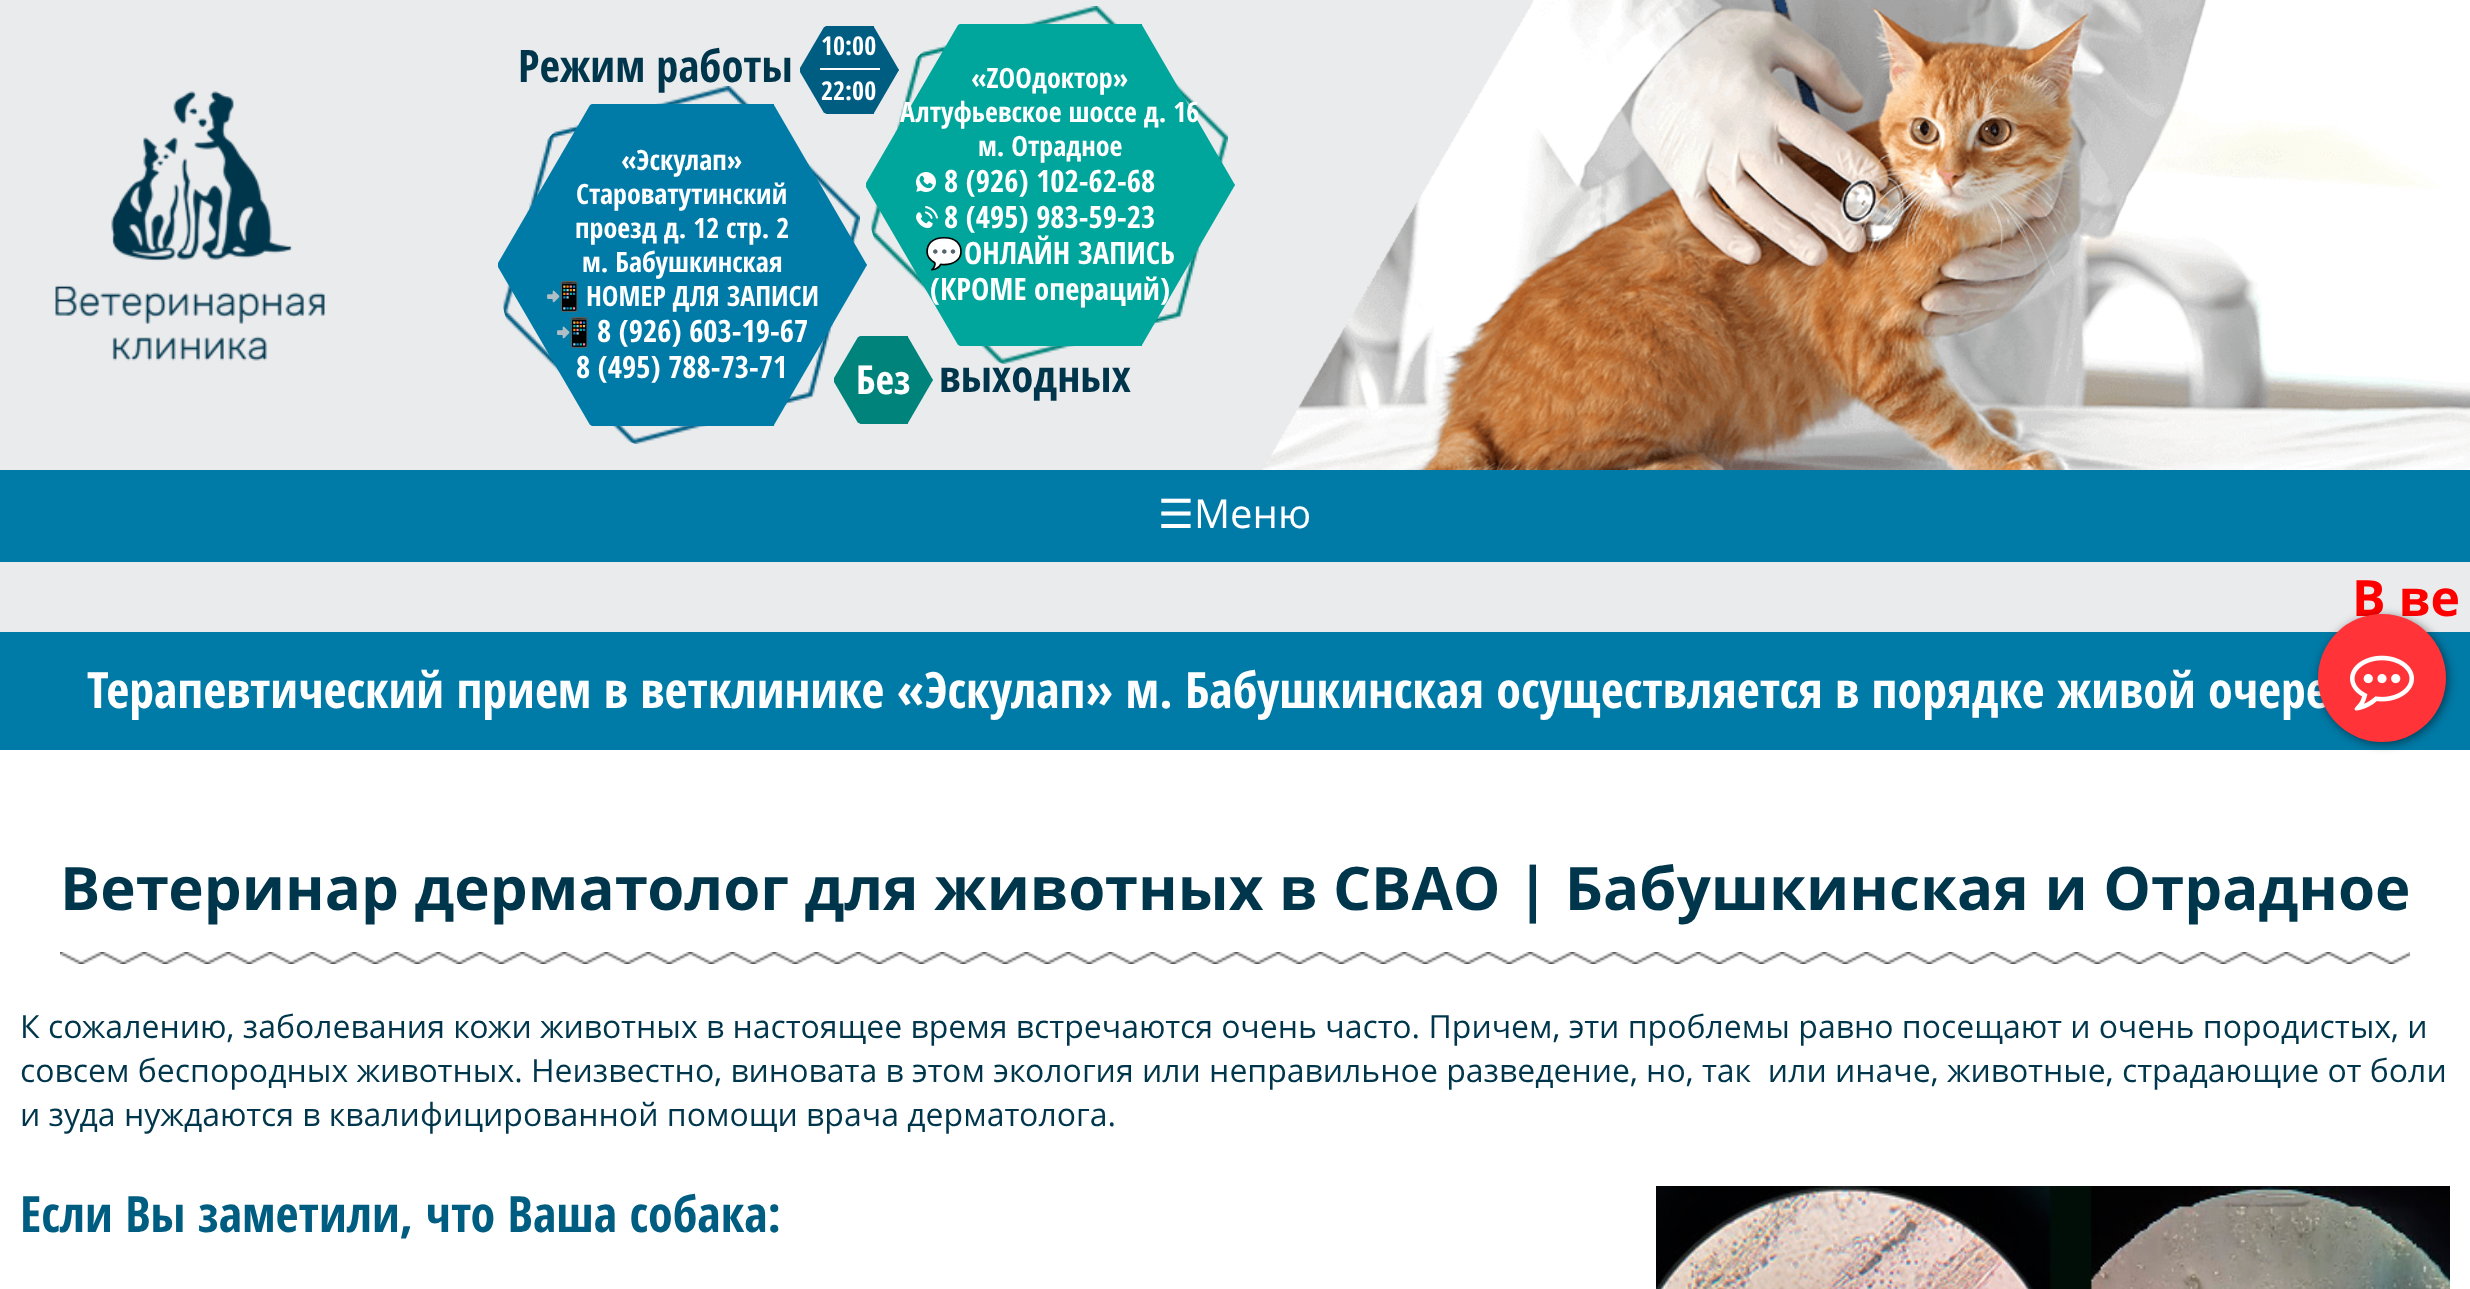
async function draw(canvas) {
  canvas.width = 2470
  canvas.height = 1289
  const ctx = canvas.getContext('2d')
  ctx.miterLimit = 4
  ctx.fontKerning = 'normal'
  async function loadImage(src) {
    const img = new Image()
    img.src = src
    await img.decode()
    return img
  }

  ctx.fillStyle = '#eaebed'
  ctx.fillRect(0, 0, 2470, 1289)
  ctx.drawImage(await loadImage('image0.png'), 55, 91, 270, 270)
  ctx.font = 'bold 44.75px Open Sans Condensed'
  ctx.fillStyle = '#00364c'
  ctx.fillText('Режим работы', 518, 82)
  ctx.drawImage(await loadImage('image1.png'), 870, 6, 358, 358)
  ctx.fillStyle = '#00a69b'
  ctx.beginPath()
  ctx.moveTo(1142, 25)
  ctx.lineTo(1235, 185)
  ctx.lineTo(958, 345)
  ctx.lineTo(866, 187)
  ctx.lineTo(866, 184)
  ctx.closePath()
  ctx.fill()
  ctx.save()
  ctx.beginPath()
  ctx.roundRect(866, 0, 370, 370, 185)
  ctx.clip()
  ctx.fillRect(958, 24, 184, 322)
  ctx.restore()
  ctx.beginPath()
  ctx.moveTo(958, 25)
  ctx.lineTo(1235, 185)
  ctx.lineTo(1142, 345)
  ctx.lineTo(866, 186)
  ctx.lineTo(866, 183)
  ctx.closePath()
  ctx.fill()
  ctx.fillStyle = '#005d82'
  ctx.beginPath()
  ctx.moveTo(874, 27)
  ctx.lineTo(899, 70)
  ctx.lineTo(824, 113)
  ctx.lineTo(800, 72)
  ctx.lineTo(800, 69)
  ctx.closePath()
  ctx.fill()
  ctx.save()
  ctx.beginPath()
  ctx.roundRect(800, 20, 100, 100, 50)
  ctx.clip()
  ctx.fillRect(824, 26, 50, 88)
  ctx.restore()
  ctx.beginPath()
  ctx.moveTo(824, 27)
  ctx.lineTo(899, 70)
  ctx.lineTo(874, 113)
  ctx.lineTo(800, 71)
  ctx.lineTo(800, 68)
  ctx.closePath()
  ctx.fill()
  ctx.font = 'bold 26px Open Sans Condensed'
  ctx.fillStyle = '#fff'
  ctx.fillText('10:00', 821, 55)
  ctx.fillRect(820, 68, 60, 2)
  ctx.fillText('22:00', 821, 100)
  ctx.font = 'bold 28px Open Sans Condensed'
  ctx.fillText('«ZOOдоктор»', 971, 88)
  ctx.fillText('Алтуфьевское шоссе д. 16', 900, 122)
  ctx.fillText('м. Отрадное', 978, 156)
  ctx.drawImage(await loadImage('image2.png'), 916, 172, 20, 20)
  ctx.font = 'bold 30.75px Open Sans Condensed'
  ctx.fillText('8 (926) 102-62-68', 944, 192)
  ctx.drawImage(await loadImage('image3.png'), 916, 206, 22, 22)
  ctx.fillText('8 (495) 983-59-23', 944, 228)
  ctx.font = '30.75px Noto Color Emoji'
  ctx.fillText('💬', 925, 264)
  ctx.font = 'bold 30.75px Open Sans Condensed'
  ctx.fillText('ОНЛАЙН ЗАПИСЬ', 964, 264)
  ctx.fillText('(КРОМЕ операций)', 930, 300)
  ctx.drawImage(await loadImage('image4.png'), 503, 86, 357, 358)
  ctx.fillStyle = '#007aa6'
  ctx.beginPath()
  ctx.moveTo(774, 105)
  ctx.lineTo(867, 265)
  ctx.lineTo(590, 425)
  ctx.lineTo(498, 267)
  ctx.lineTo(498, 264)
  ctx.closePath()
  ctx.fill()
  ctx.save()
  ctx.beginPath()
  ctx.roundRect(498, 80, 370, 370, 185)
  ctx.clip()
  ctx.fillRect(590, 104, 184, 322)
  ctx.restore()
  ctx.beginPath()
  ctx.moveTo(590, 105)
  ctx.lineTo(867, 265)
  ctx.lineTo(774, 425)
  ctx.lineTo(498, 266)
  ctx.lineTo(498, 263)
  ctx.closePath()
  ctx.fill()
  ctx.font = 'bold 28px Open Sans Condensed'
  ctx.fillStyle = '#fff'
  ctx.fillText('«Эскулап»', 621, 170)
  ctx.fillText('Староватутинский', 576, 204)
  ctx.fillText('проезд д. 12 стр. 2', 575, 238)
  ctx.fillText('м. Бабушкинская', 582, 272)
  ctx.font = '28px Noto Color Emoji'
  ctx.fillText('📲', 545, 306)
  ctx.font = 'bold 28px Open Sans Condensed'
  ctx.fillText('НОМЕР ДЛЯ ЗАПИСИ', 586, 306)
  ctx.font = '28px Noto Color Emoji'
  ctx.fillText('📲', 555, 342)
  ctx.font = 'bold 30.75px Open Sans Condensed'
  ctx.fillText('8 (926) 603-19-67', 597, 342)
  ctx.fillText('8 (495) 788-73-71', 576, 378)
  ctx.fillStyle = '#00837a'
  ctx.beginPath()
  ctx.moveTo(908, 337)
  ctx.lineTo(933, 380)
  ctx.lineTo(858, 423)
  ctx.lineTo(834, 382)
  ctx.lineTo(834, 379)
  ctx.closePath()
  ctx.fill()
  ctx.save()
  ctx.beginPath()
  ctx.roundRect(834, 330, 100, 100, 50)
  ctx.clip()
  ctx.fillRect(858, 336, 50, 88)
  ctx.restore()
  ctx.beginPath()
  ctx.moveTo(858, 337)
  ctx.lineTo(933, 380)
  ctx.lineTo(908, 423)
  ctx.lineTo(834, 381)
  ctx.lineTo(834, 378)
  ctx.closePath()
  ctx.fill()
  ctx.font = 'bold 40px Open Sans Condensed'
  ctx.fillStyle = '#fff'
  ctx.fillText('Без', 856, 394)
  ctx.font = 'bold 44.75px Open Sans Condensed'
  ctx.fillStyle = '#00364c'
  ctx.fillText('выходных', 939, 392)
  ctx.drawImage(await loadImage('image5.png'), 1262, 0, 1208, 470)
  ctx.fillStyle = '#007aa6'
  ctx.fillRect(0, 470, 2470, 92)
  ctx.font = '40px DejaVu Sans'
  ctx.fillStyle = '#fff'
  ctx.fillText('☰', 1158, 528)
  ctx.font = '40px Open Sans'
  ctx.fillText('Меню', 1194, 528)
  ctx.font = 'bold 50px Open Sans'
  ctx.fillStyle = '#f00'
  ctx.fillText('В ве', 2352, 616)
  ctx.fillStyle = '#007aa6'
  ctx.fillRect(0, 632, 2470, 118)
  ctx.font = 'bold 50px Open Sans Condensed'
  ctx.fillStyle = '#fff'
  ctx.fillText('Терапевтический прием в ветклинике «Эскулап» м. Бабушкинская осуществляется в порядке живой очере', 87, 708)
  ctx.fillRect(0, 750, 2470, 539)
  ctx.drawImage(await loadImage('image6.png'), 60, 952, 2350, 12)
  ctx.font = 'bold 60px Open Sans'
  ctx.fillStyle = '#00364c'
  ctx.fillText('Ветеринар дерматолог для животных в СВАО | Бабушкинская и Отрадное', 60, 910)
  ctx.font = '32px Open Sans'
  ctx.fillText('К сожалению, заболевания кожи животных в настоящее время встречаются очень часто. Причем, эти проблемы равно посещают и очень породистых, и', 20, 1038)
  ctx.fillText('совсем беспородных животных. Неизвестно, виновата в этом экология или неправильное разведение, но, так  или иначе, животные, страдающие от боли', 20, 1082)
  ctx.fillText('и зуда нуждаются в квалифицированной помощи врача дерматолога.', 20, 1126)
  ctx.font = 'bold 50px Open Sans Condensed'
  ctx.fillStyle = '#005d82'
  ctx.fillText('Если Вы заметили, что Ваша собака:', 20, 1232)
  ctx.drawImage(await loadImage('image7.png'), 1656, 1186, 794, 103)
  ctx.fillStyle = '#00000080'
  ctx.filter = 'blur(5px)'
  ctx.beginPath()
  ctx.roundRect(2320, 616, 128, 128, 64)
  ctx.fill()
  ctx.filter = 'none'
  ctx.fillStyle = '#ff3338'
  ctx.beginPath()
  ctx.arc(2382, 678, 64, 0, 2 * Math.PI)
  ctx.fill()
  ctx.drawImage(await loadImage('image8.png'), 2350, 655, 64, 56)
}

draw(document.querySelector('canvas'))
